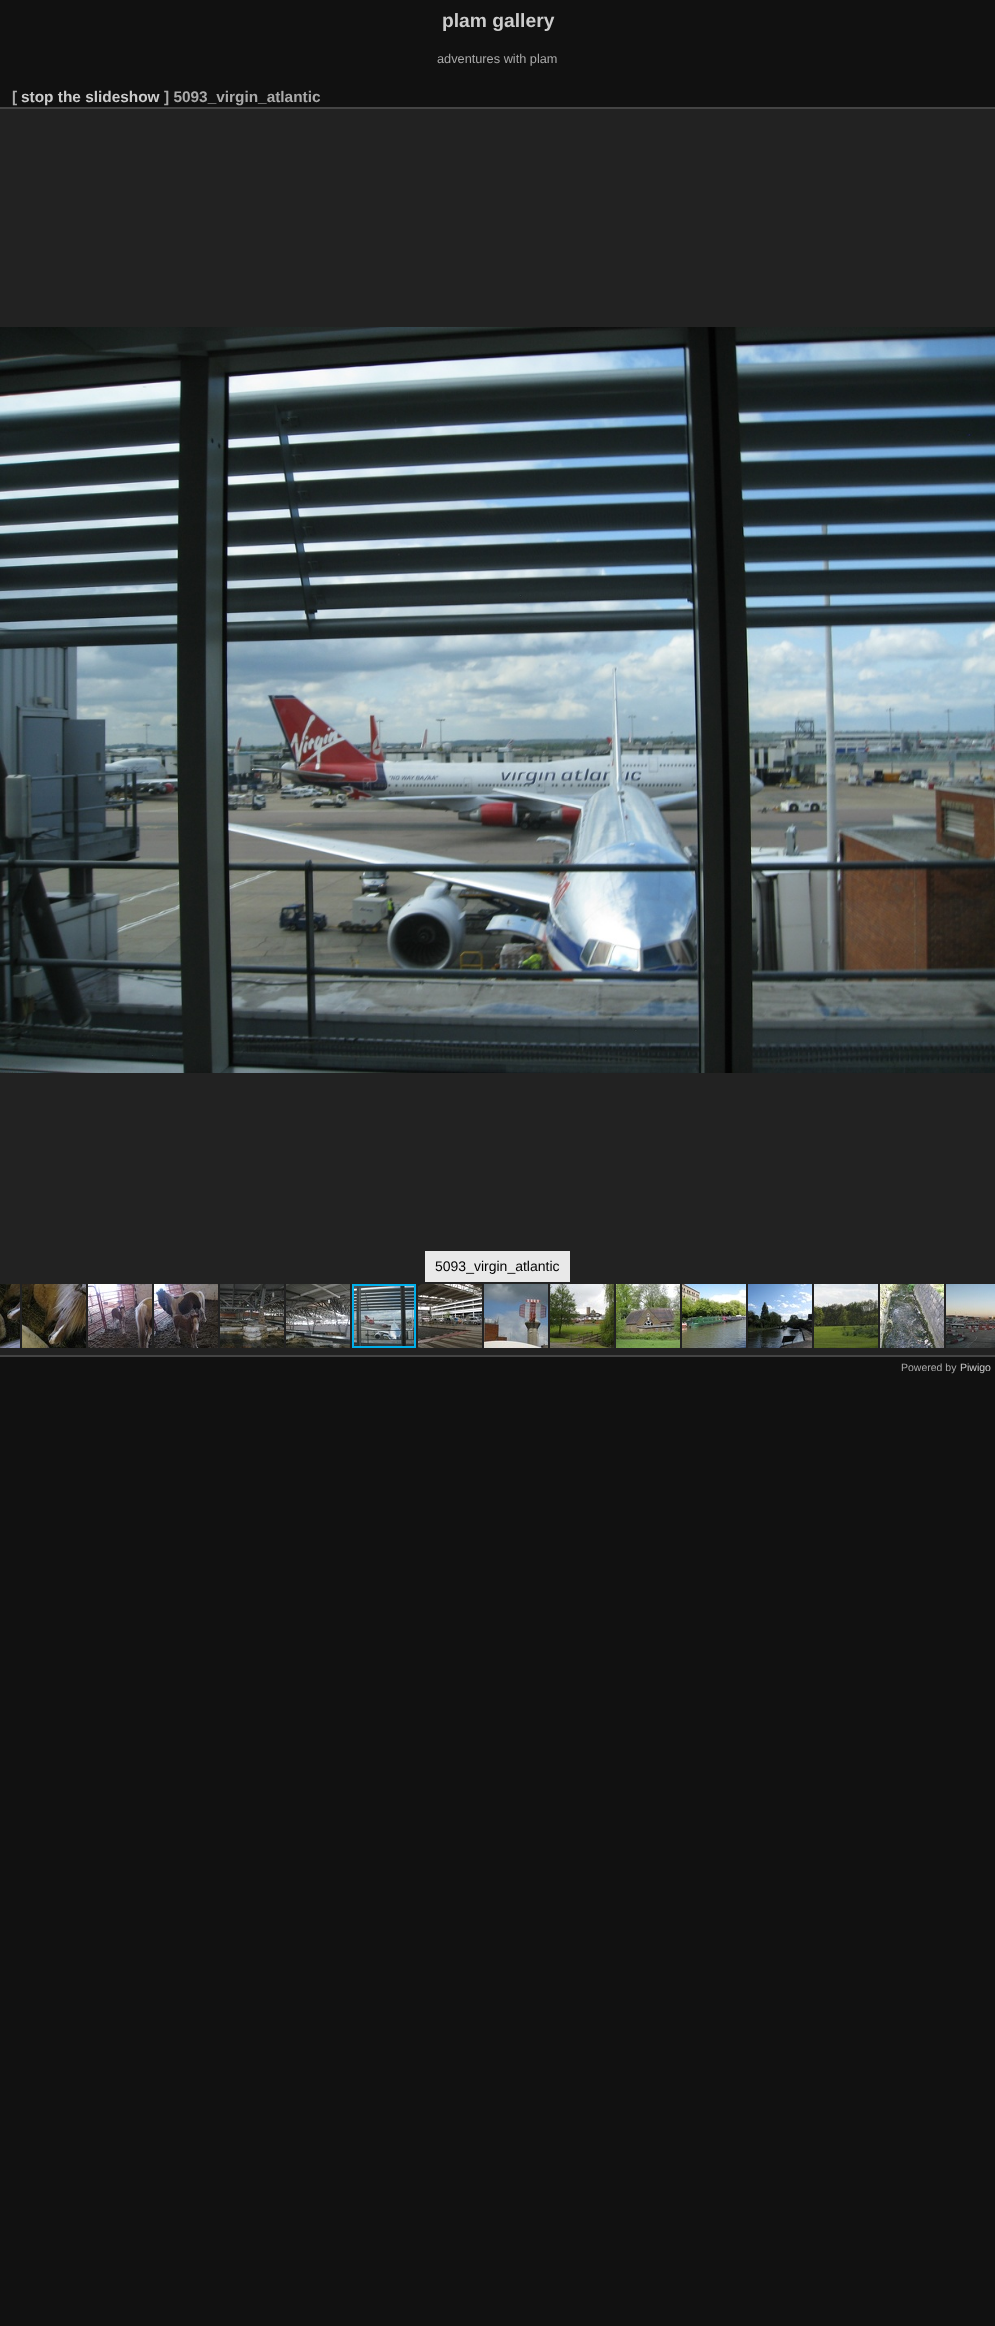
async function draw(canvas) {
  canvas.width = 995
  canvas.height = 2326
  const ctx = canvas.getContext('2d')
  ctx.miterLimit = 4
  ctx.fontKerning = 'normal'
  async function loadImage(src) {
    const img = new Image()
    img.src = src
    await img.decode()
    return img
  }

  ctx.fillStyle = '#111'
  ctx.fillRect(0, 0, 995, 2326)
  ctx.font = 'bold 19.25px Liberation Sans'
  ctx.fillStyle = '#ccc'
  ctx.fillText('plam gallery', 442, 27)
  ctx.font = '12.75px Liberation Sans'
  ctx.fillStyle = '#aaa'
  ctx.fillText('adventures with plam', 437, 63)
  ctx.fillStyle = '#444'
  ctx.fillRect(0, 107, 995, 2)
  ctx.font = 'bold 15.4px Liberation Sans'
  ctx.fillStyle = '#aaa'
  ctx.fillText('[', 12, 102)
  ctx.fillStyle = '#ccc'
  ctx.fillText('stop the slideshow', 21, 102)
  ctx.fillStyle = '#aaa'
  ctx.fillText('] 5093_virgin_atlantic', 164, 102)
  ctx.fillStyle = '#222'
  ctx.fillRect(0, 109, 995, 1246)
  ctx.fillStyle = '#444'
  ctx.fillRect(0, 1355, 995, 2)
  ctx.drawImage(await loadImage('image0.png'), 0, 327, 995, 746)
  ctx.fillStyle = '#e9e9e9'
  ctx.fillRect(425, 1251, 145, 31)
  ctx.font = '14px Liberation Sans'
  ctx.fillStyle = '#000'
  ctx.fillText('5093_virgin_atlantic', 435, 1271)
  ctx.drawImage(await loadImage('image1.png'), 0, 1284, 20, 64)
  ctx.drawImage(await loadImage('image2.png'), 22, 1284, 64, 64)
  ctx.drawImage(await loadImage('image3.png'), 88, 1284, 64, 64)
  ctx.drawImage(await loadImage('image4.png'), 154, 1284, 64, 64)
  ctx.drawImage(await loadImage('image5.png'), 220, 1284, 64, 64)
  ctx.drawImage(await loadImage('image6.png'), 286, 1284, 64, 64)
  ctx.drawImage(await loadImage('image16.png'), 354, 1286, 60, 60)
  ctx.strokeStyle = '#00afea'
  ctx.lineWidth = 2
  ctx.strokeRect(353, 1285, 62, 62)
  ctx.drawImage(await loadImage('image7.png'), 418, 1284, 64, 64)
  ctx.drawImage(await loadImage('image8.png'), 484, 1284, 64, 64)
  ctx.drawImage(await loadImage('image9.png'), 550, 1284, 64, 64)
  ctx.drawImage(await loadImage('image10.png'), 616, 1284, 64, 64)
  ctx.drawImage(await loadImage('image11.png'), 682, 1284, 64, 64)
  ctx.drawImage(await loadImage('image12.png'), 748, 1284, 64, 64)
  ctx.drawImage(await loadImage('image13.png'), 814, 1284, 64, 64)
  ctx.drawImage(await loadImage('image14.png'), 880, 1284, 64, 64)
  ctx.drawImage(await loadImage('image15.png'), 946, 1284, 49, 64)
  ctx.font = '10.5px Liberation Sans'
  ctx.fillStyle = '#aaa'
  ctx.fillText('Powered by', 901, 1371)
  ctx.fillStyle = '#ccc'
  ctx.fillText('Piwigo', 960, 1371)
}

draw(document.querySelector('canvas'))
